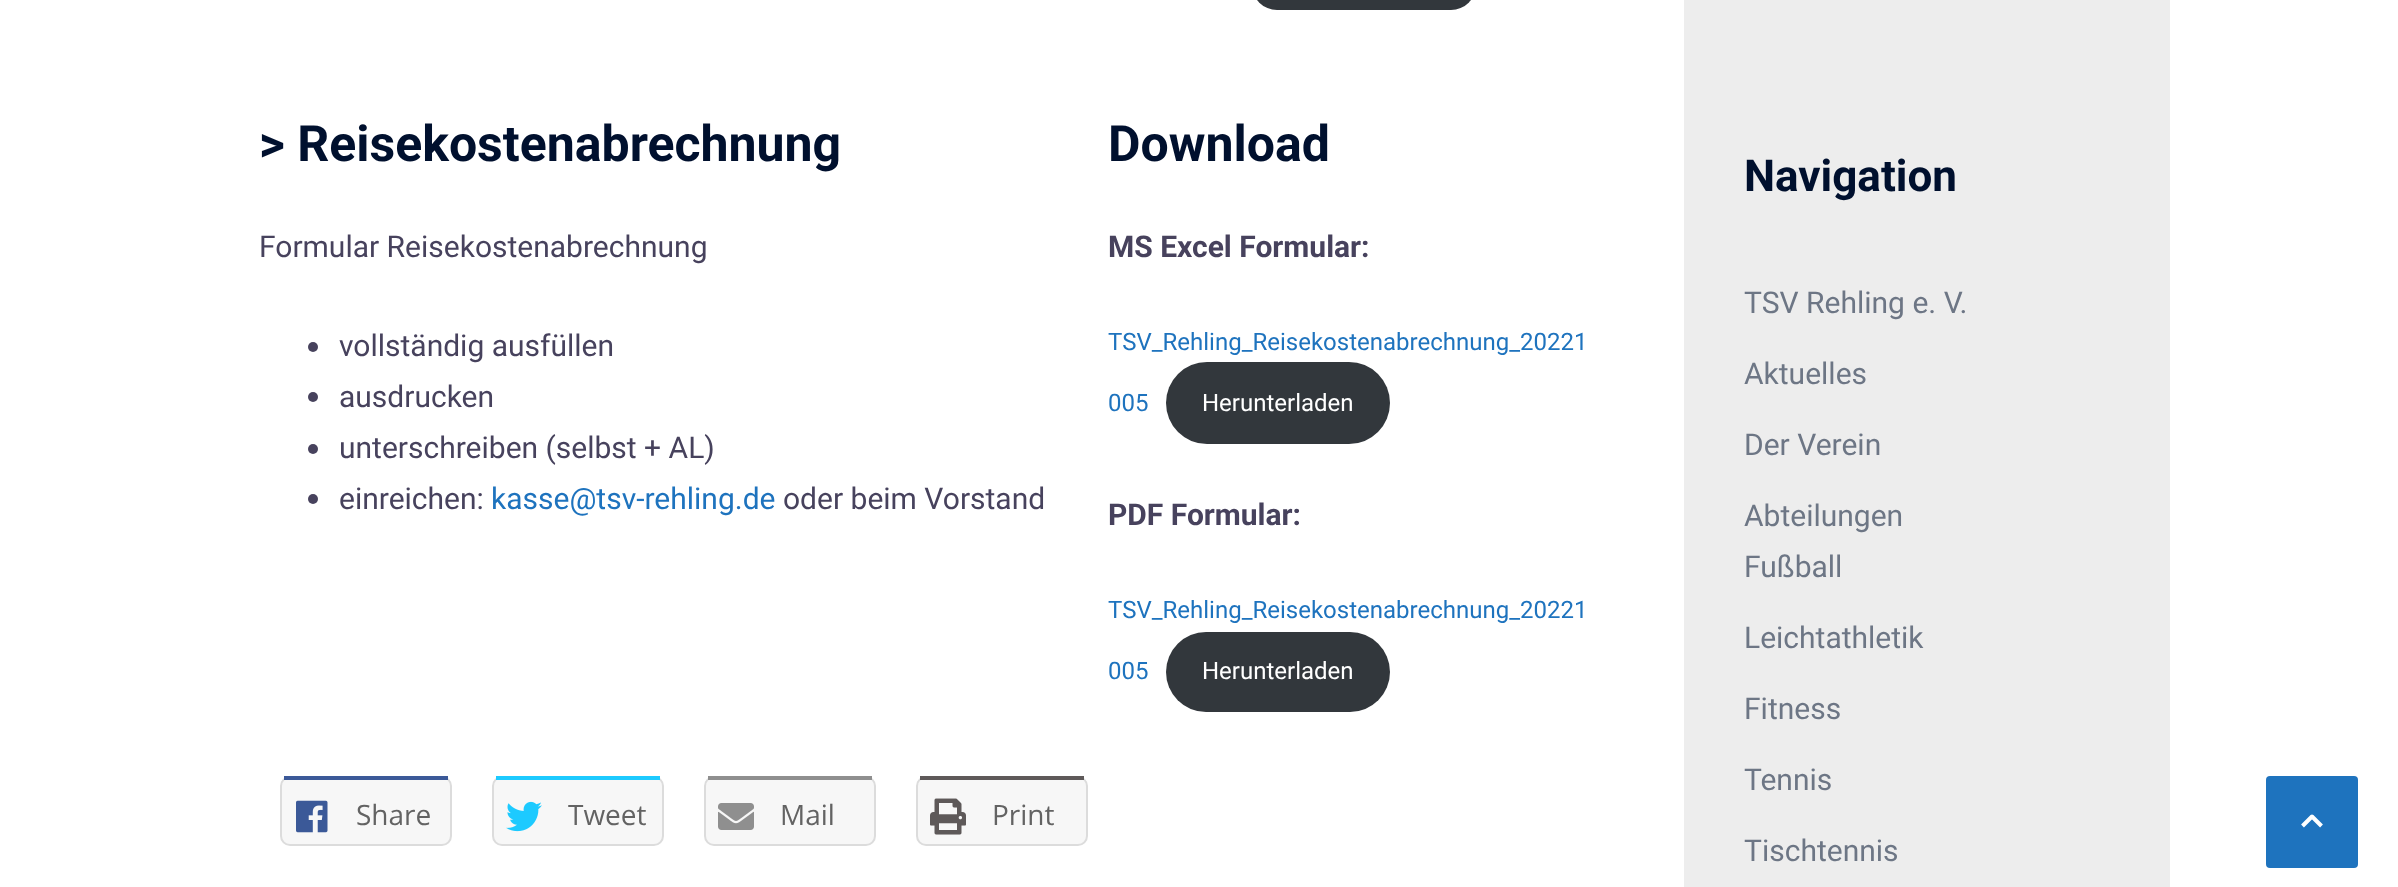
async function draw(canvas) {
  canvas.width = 2398
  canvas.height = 887
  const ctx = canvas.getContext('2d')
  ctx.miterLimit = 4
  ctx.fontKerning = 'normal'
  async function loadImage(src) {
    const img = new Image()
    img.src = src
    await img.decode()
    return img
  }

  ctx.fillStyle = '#fff'
  ctx.fillRect(0, 0, 2398, 887)
  ctx.fillStyle = '#32373c'
  ctx.beginPath()
  ctx.roundRect(1252, -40, 224, 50, 40)
  ctx.fill()
  ctx.font = 'bold 50px Roboto'
  ctx.fillStyle = '#00102e'
  ctx.fillText('> Reisekostenabrechnung', 259, 161)
  ctx.font = '30px Roboto'
  ctx.fillStyle = '#47425d'
  ctx.fillText('Formular Reisekostenabrechnung', 259, 257)
  ctx.beginPath()
  ctx.arc(313, 347, 5, 0, 2 * Math.PI)
  ctx.fill()
  ctx.fillText('vollständig ausfüllen', 339, 356)
  ctx.beginPath()
  ctx.arc(313, 397, 5, 0, 2 * Math.PI)
  ctx.fill()
  ctx.fillText('ausdrucken', 339, 407)
  ctx.beginPath()
  ctx.arc(313, 449, 5, 0, 2 * Math.PI)
  ctx.fill()
  ctx.fillText('unterschreiben (selbst + AL)', 339, 458)
  ctx.beginPath()
  ctx.arc(313, 499, 5, 0, 2 * Math.PI)
  ctx.fill()
  ctx.fillText('einreichen:', 339, 509)
  ctx.fillStyle = '#1e73be'
  ctx.fillText('kasse@tsv-rehling.de', 491, 509)
  ctx.fillStyle = '#47425d'
  ctx.fillText('oder beim Vorstand', 783, 509)
  ctx.font = 'bold 50px Roboto'
  ctx.fillStyle = '#00102e'
  ctx.fillText('Download', 1108, 161)
  ctx.font = 'bold 30px Roboto'
  ctx.fillStyle = '#47425d'
  ctx.fillText('MS Excel Formular:', 1108, 257)
  ctx.font = '24px Roboto'
  ctx.fillStyle = '#1e73be'
  ctx.fillText('TSV_Rehling_Reisekostenabrechnung_20221', 1108, 350)
  ctx.fillText('005', 1108, 411)
  ctx.fillStyle = '#32373c'
  ctx.beginPath()
  ctx.roundRect(1166, 362, 224, 82, 41)
  ctx.fill()
  ctx.fillStyle = '#fff'
  ctx.fillText('Herunterladen', 1202, 411)
  ctx.font = 'bold 30px Roboto'
  ctx.fillStyle = '#47425d'
  ctx.fillText('PDF Formular:', 1108, 525)
  ctx.font = '24px Roboto'
  ctx.fillStyle = '#1e73be'
  ctx.fillText('TSV_Rehling_Reisekostenabrechnung_20221', 1108, 618)
  ctx.fillText('005', 1108, 679)
  ctx.fillStyle = '#32373c'
  ctx.beginPath()
  ctx.roundRect(1166, 632, 224, 80, 40)
  ctx.fill()
  ctx.fillStyle = '#fff'
  ctx.fillText('Herunterladen', 1202, 679)
  ctx.fillStyle = '#f7f7f7'
  ctx.beginPath()
  ctx.roundRect(281, 777, 170, 68, 9)
  ctx.fill()
  ctx.strokeStyle = '#dcdcdc'
  ctx.lineWidth = 2
  ctx.stroke()
  ctx.fillStyle = '#3b5998'
  ctx.fillRect(284, 776, 164, 4)
  ctx.drawImage(await loadImage('image0.png'), 296, 800, 32, 33)
  ctx.font = '28px Open Sans'
  ctx.fillStyle = '#636363'
  ctx.fillText('Share', 356, 825)
  ctx.fillStyle = '#f7f7f7'
  ctx.beginPath()
  ctx.roundRect(493, 777, 170, 68, 9)
  ctx.fill()
  ctx.stroke()
  ctx.fillStyle = '#1dcaff'
  ctx.fillRect(496, 776, 164, 4)
  ctx.drawImage(await loadImage('image1.png'), 506, 801, 36, 31)
  ctx.fillStyle = '#636363'
  ctx.fillText('Tweet', 568, 825)
  ctx.fillStyle = '#f7f7f7'
  ctx.beginPath()
  ctx.roundRect(705, 777, 170, 68, 9)
  ctx.fill()
  ctx.stroke()
  ctx.fillStyle = '#8f8f8f'
  ctx.fillRect(708, 776, 164, 4)
  ctx.drawImage(await loadImage('image2.png'), 718, 803, 36, 27)
  ctx.fillStyle = '#636363'
  ctx.fillText('Mail', 780, 825)
  ctx.fillStyle = '#f7f7f7'
  ctx.beginPath()
  ctx.roundRect(917, 777, 170, 68, 9)
  ctx.fill()
  ctx.stroke()
  ctx.fillStyle = '#5e5959'
  ctx.fillRect(920, 776, 164, 4)
  ctx.drawImage(await loadImage('image3.png'), 930, 798, 36, 37)
  ctx.fillStyle = '#636363'
  ctx.fillText('Print', 992, 825)
  ctx.fillStyle = '#ededed'
  ctx.fillRect(1684, 0, 486, 887)
  ctx.font = 'bold 44px Roboto'
  ctx.fillStyle = '#00102e'
  ctx.fillText('Navigation', 1744, 191)
  ctx.font = '30px Roboto'
  ctx.fillStyle = '#6d7685'
  ctx.fillText('TSV Rehling e. V.', 1744, 313)
  ctx.fillText('Aktuelles', 1744, 384)
  ctx.fillText('Der Verein', 1744, 455)
  ctx.fillText('Abteilungen', 1744, 526)
  ctx.fillText('Fußball', 1744, 577)
  ctx.fillText('Leichtathletik', 1744, 648)
  ctx.fillText('Fitness', 1744, 719)
  ctx.fillText('Tennis', 1744, 790)
  ctx.fillText('Tischtennis', 1744, 861)
  ctx.fillStyle = '#1e73be'
  ctx.beginPath()
  ctx.roundRect(2266, 776, 92, 92, 4)
  ctx.fill()
  ctx.beginPath()
  ctx.moveTo(2302.5, 826)
  ctx.lineTo(2312, 816.5)
  ctx.lineTo(2321.5, 826)
  ctx.strokeStyle = '#fff'
  ctx.lineWidth = 4
  ctx.lineJoin = 'round'
  ctx.stroke()
}

draw(document.querySelector('canvas'))
